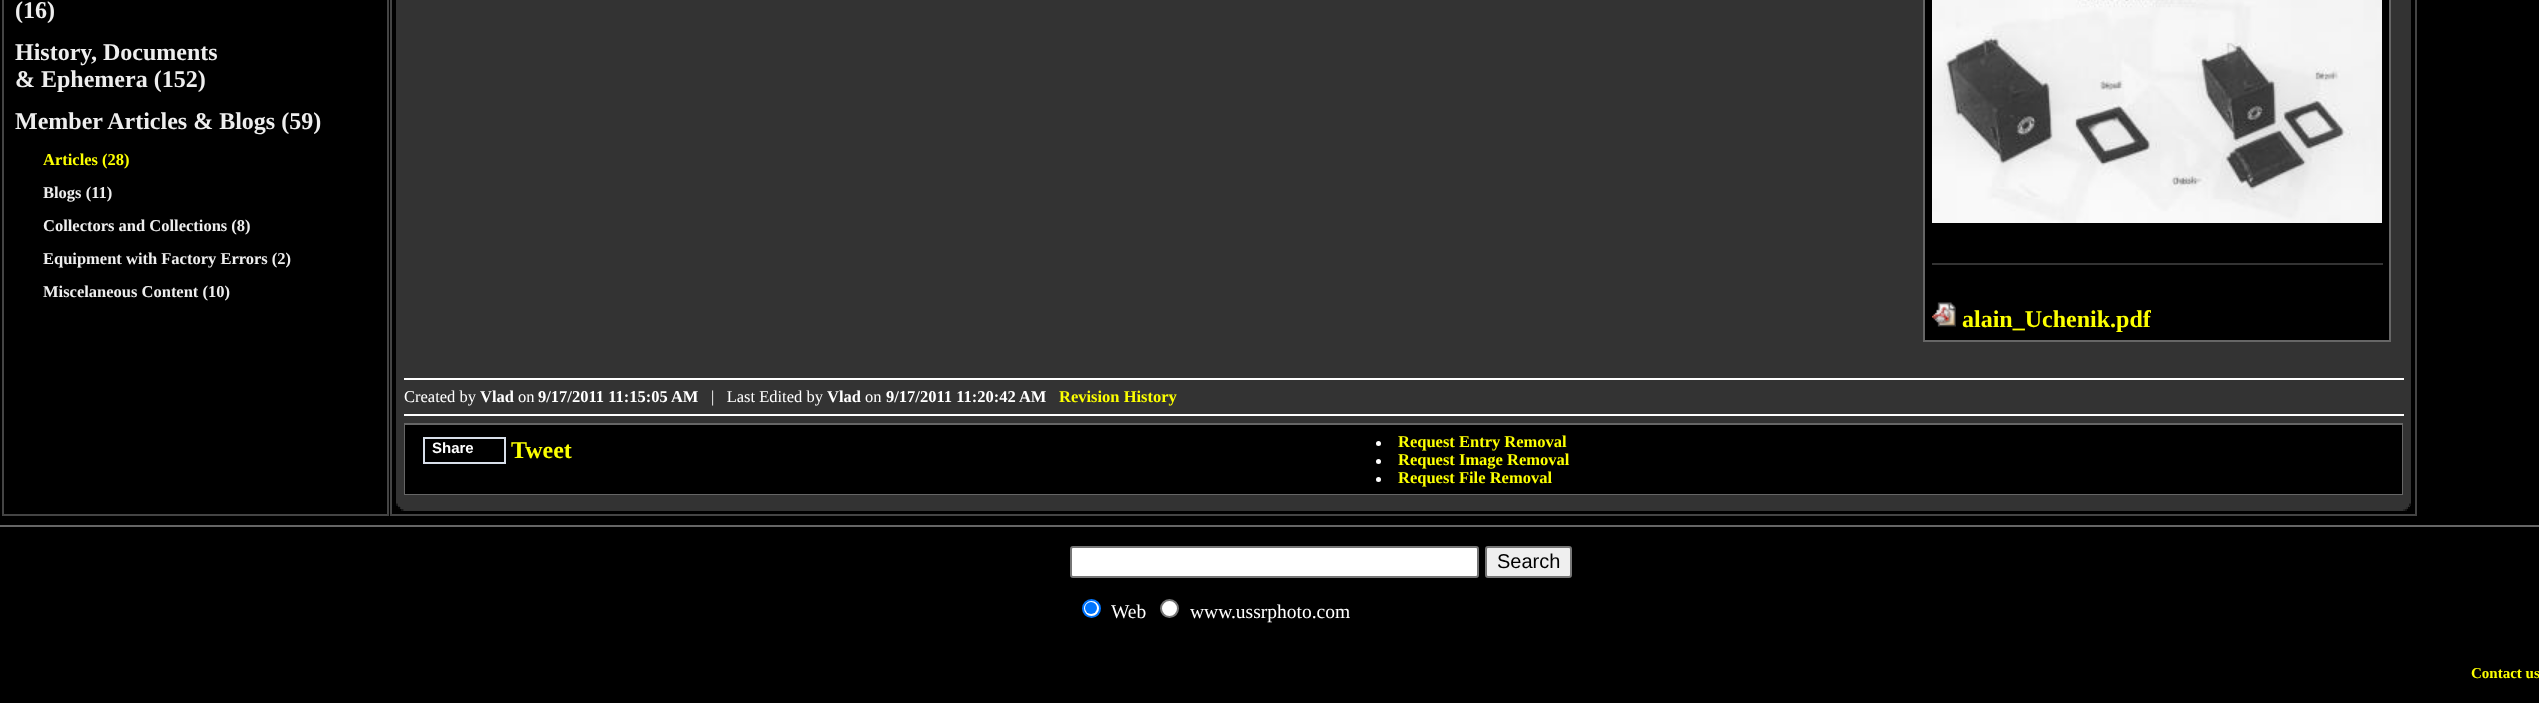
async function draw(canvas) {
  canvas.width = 2539
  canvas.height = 703
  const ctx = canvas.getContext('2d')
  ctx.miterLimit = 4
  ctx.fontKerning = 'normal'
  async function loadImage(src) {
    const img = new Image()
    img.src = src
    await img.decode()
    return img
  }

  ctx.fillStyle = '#000'
  ctx.fillRect(0, 0, 2539, 703)
  ctx.strokeStyle = '#444'
  ctx.lineWidth = 2
  ctx.strokeRect(3, -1, 385, 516)
  ctx.font = 'bold 24px Liberation Serif'
  ctx.fillStyle = '#eee'
  ctx.fillText('(16)', 15, 18)
  ctx.fillText('History, Documents', 15, 60)
  ctx.fillText('& Ephemera (152)', 15, 87)
  ctx.fillText('Member Articles & Blogs (59)', 15, 129)
  ctx.font = 'bold 16.5px Liberation Serif'
  ctx.fillStyle = '#fcff00'
  ctx.fillText('Articles (28)', 43, 165)
  ctx.fillStyle = '#eee'
  ctx.fillText('Blogs (11)', 43, 198)
  ctx.fillText('Collectors and Collections (8)', 43, 231)
  ctx.fillText('Equipment with Factory Errors (2)', 43, 264)
  ctx.fillText('Miscelaneous Content (10)', 43, 297)
  ctx.strokeRect(391, -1, 2025, 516)
  ctx.fillStyle = '#333'
  ctx.fillRect(396, 0, 2015, 506)
  ctx.fillStyle = '#000'
  ctx.beginPath()
  ctx.rect(1924, -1, 466, 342)
  ctx.fill()
  ctx.strokeStyle = '#666'
  ctx.stroke()
  ctx.drawImage(await loadImage('image0.png'), 1932, 0, 450, 223)
  ctx.fillStyle = '#333'
  ctx.fillRect(1932, 263, 451, 2)
  ctx.drawImage(await loadImage('image1.png'), 1932, 302, 24, 25)
  ctx.font = 'bold 24px Liberation Serif'
  ctx.fillStyle = '#fcff00'
  ctx.fillText('alain_Uchenik.pdf', 1962, 327)
  ctx.fillStyle = '#fff'
  ctx.fillRect(404, 378, 2000, 2)
  ctx.font = '16.5px Liberation Serif'
  ctx.fillText('Created by', 404, 402)
  ctx.font = 'bold 16.5px Liberation Serif'
  ctx.fillText('Vlad', 480, 402)
  ctx.font = '16.5px Liberation Serif'
  ctx.fillText('on', 518, 402)
  ctx.font = 'bold 16.5px Liberation Serif'
  ctx.fillText('9/17/2011 11:15:05 AM', 538, 402)
  ctx.font = '16.5px Liberation Serif'
  ctx.fillText('|   Last Edited by', 711, 402)
  ctx.font = 'bold 16.5px Liberation Serif'
  ctx.fillText('Vlad', 827, 402)
  ctx.font = '16.5px Liberation Serif'
  ctx.fillText('on', 865, 402)
  ctx.font = 'bold 16.5px Liberation Serif'
  ctx.fillText('9/17/2011 11:20:42 AM', 886, 402)
  ctx.fillStyle = '#fcff00'
  ctx.fillText('Revision History', 1059, 402)
  ctx.fillStyle = '#fff'
  ctx.fillRect(404, 414, 2000, 2)
  ctx.fillStyle = '#666'
  ctx.fillRect(404, 423, 1999, 72)
  ctx.fillStyle = '#000'
  ctx.fillRect(405, 425, 1997, 69)
  ctx.strokeStyle = '#d8dfea'
  ctx.strokeRect(424, 438, 81, 25)
  ctx.font = 'bold 15px Liberation Sans'
  ctx.fillStyle = '#fff'
  ctx.fillText('Share', 432, 453)
  ctx.font = 'bold 24px Liberation Serif'
  ctx.fillStyle = '#fcff00'
  ctx.fillText('Tweet', 511, 458)
  ctx.fillStyle = '#fff'
  ctx.beginPath()
  ctx.arc(1378.5, 443.5, 2.5, 0, 2 * Math.PI)
  ctx.fill()
  ctx.font = 'bold 16.5px Liberation Serif'
  ctx.fillStyle = '#fcff00'
  ctx.fillText('Request Entry Removal', 1398, 447)
  ctx.fillStyle = '#fff'
  ctx.beginPath()
  ctx.arc(1378.5, 461.5, 2.5, 0, 2 * Math.PI)
  ctx.fill()
  ctx.fillStyle = '#fcff00'
  ctx.fillText('Request Image Removal', 1398, 465)
  ctx.fillStyle = '#fff'
  ctx.beginPath()
  ctx.arc(1378.5, 479.5, 2.5, 0, 2 * Math.PI)
  ctx.fill()
  ctx.fillStyle = '#fcff00'
  ctx.fillText('Request File Removal', 1398, 483)
  ctx.fillStyle = '#262626'
  ctx.fillRect(2409, 503, 2, 1)
  ctx.fillRect(396, 503, 2, 1)
  ctx.fillStyle = '#151515'
  ctx.fillRect(2409, 504, 2, 2)
  ctx.fillRect(396, 504, 2, 2)
  ctx.fillStyle = '#333'
  ctx.fillRect(398, 506, 2011, 1)
  ctx.fillStyle = '#292929'
  ctx.fillRect(2408, 506, 2, 1)
  ctx.fillRect(398, 506, 2, 1)
  ctx.fillRect(398, 507, 2011, 2)
  ctx.fillStyle = '#050505'
  ctx.fillRect(2408, 507, 2, 2)
  ctx.fillRect(398, 507, 2, 2)
  ctx.fillStyle = '#333'
  ctx.fillRect(401, 507, 2005, 2)
  ctx.fillStyle = '#262626'
  ctx.fillRect(401, 509, 2005, 2)
  ctx.fillStyle = '#151515'
  ctx.fillRect(2405, 509, 2, 2)
  ctx.fillRect(401, 509, 2, 2)
  ctx.fillStyle = '#333'
  ctx.fillRect(404, 509, 1999, 2)
  ctx.fillStyle = '#666'
  ctx.fillRect(0, 525, 2539, 2)
  ctx.fillStyle = '#fff'
  ctx.beginPath()
  ctx.roundRect(1071, 547, 407, 30, 2)
  ctx.fill()
  ctx.strokeStyle = '#767676'
  ctx.stroke()
  ctx.fillStyle = '#efefef'
  ctx.beginPath()
  ctx.roundRect(1486, 547, 85, 30, 2)
  ctx.fill()
  ctx.stroke()
  ctx.font = '20px Liberation Sans'
  ctx.fillStyle = '#000'
  ctx.fillText('Search', 1497, 568)
  ctx.fillStyle = '#fff'
  ctx.beginPath()
  ctx.arc(1091.5, 608.5, 8.5, 0, 2 * Math.PI)
  ctx.fill()
  ctx.strokeStyle = '#0075ff'
  ctx.stroke()
  ctx.fillStyle = '#0075ff'
  ctx.beginPath()
  ctx.arc(1091, 608, 6, 0, 2 * Math.PI)
  ctx.fill()
  ctx.font = '19.5px Liberation Serif'
  ctx.fillStyle = '#fff'
  ctx.fillText('Web', 1111, 618)
  ctx.beginPath()
  ctx.arc(1169.5, 608.5, 8.5, 0, 2 * Math.PI)
  ctx.fill()
  ctx.strokeStyle = '#767676'
  ctx.stroke()
  ctx.fillText('www.ussrphoto.com', 1190, 618)
  ctx.font = 'bold 15px Liberation Serif'
  ctx.fillStyle = '#fcff00'
  ctx.fillText('Contact us', 2471, 678)
}

draw(document.querySelector('canvas'))
